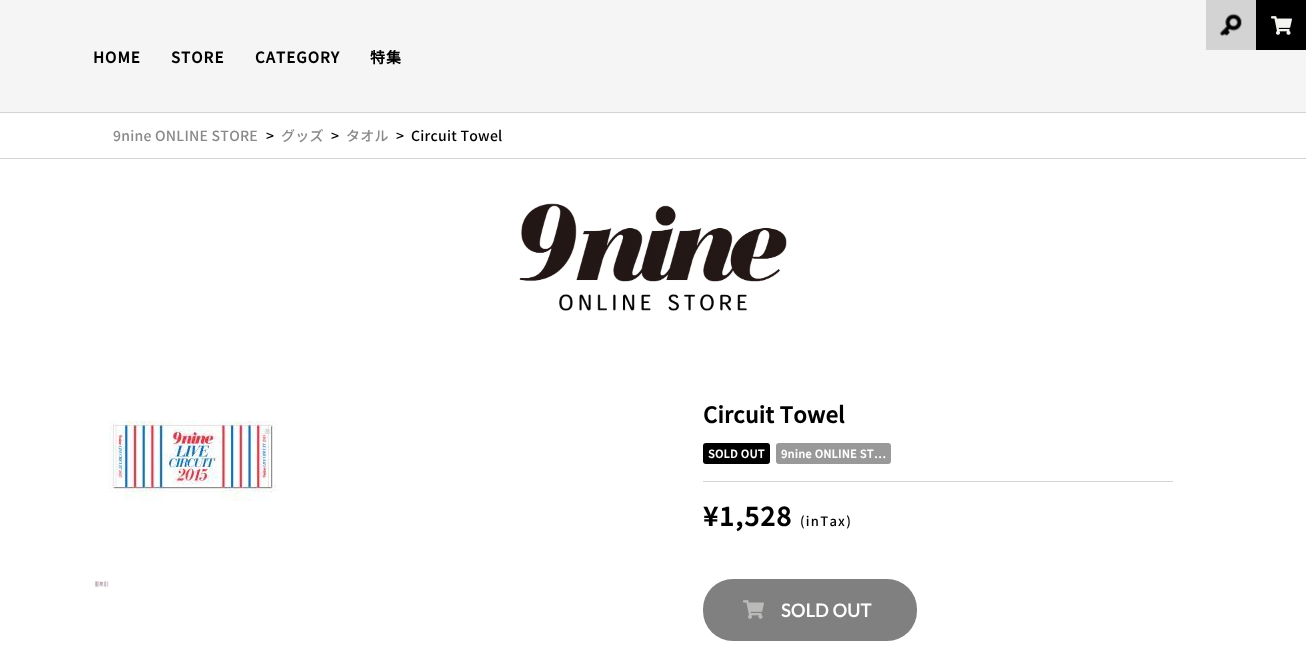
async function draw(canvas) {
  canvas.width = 1306
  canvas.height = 668
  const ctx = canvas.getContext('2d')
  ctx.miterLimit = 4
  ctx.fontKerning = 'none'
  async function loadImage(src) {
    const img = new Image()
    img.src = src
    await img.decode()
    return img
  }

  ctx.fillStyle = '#fff'
  ctx.fillRect(0, 0, 1306, 668)
  ctx.fillStyle = '#f5f5f5'
  ctx.fillRect(0, 0, 1306, 112)
  ctx.fillStyle = '#d3d3d3'
  ctx.fillRect(1206, 0, 50, 50)
  ctx.drawImage(await loadImage('image0.png'), 1219, 13, 23, 23)
  ctx.fillStyle = '#000'
  ctx.fillRect(1256, 0, 50, 50)
  ctx.drawImage(await loadImage('image1.png'), 1271, 16, 21, 19)
  ctx.letterSpacing = '1px'
  ctx.font = 'bold 15px Noto Sans JP'
  ctx.fillText('HOME', 93, 63)
  ctx.fillText('STORE', 171, 63)
  ctx.fillText('CATEGORY', 255, 63)
  ctx.fillText('特集', 370, 63)
  ctx.fillStyle = '#d3d3d3'
  ctx.fillRect(0, 112, 1306, 1)
  ctx.fillRect(0, 158, 1306, 1)
  ctx.letterSpacing = '0.25px'
  ctx.font = '500 14px Noto Sans JP'
  ctx.fillStyle = '#898989'
  ctx.fillText('9nine ONLINE STORE', 113, 141)
  ctx.fillStyle = '#000'
  ctx.fillText('>', 266, 141)
  ctx.fillStyle = '#898989'
  ctx.fillText('グッズ', 281, 141)
  ctx.fillStyle = '#000'
  ctx.fillText('>', 331, 141)
  ctx.fillStyle = '#898989'
  ctx.fillText('タオル', 346, 141)
  ctx.fillStyle = '#000'
  ctx.fillText('>', 396, 141)
  ctx.fillText('Circuit Towel', 411, 141)
  ctx.drawImage(await loadImage('image2.png'), 519, 203, 268, 108)
  ctx.drawImage(await loadImage('image3.png'), 109, 420, 168, 81)
  ctx.drawImage(await loadImage('image4.png'), 94, 581, 15, 7)
  ctx.font = 'bold 22px Noto Sans JP'
  ctx.fillText('Circuit Towel', 703, 423)
  ctx.beginPath()
  ctx.roundRect(703, 443, 67, 21, 3)
  ctx.fill()
  ctx.letterSpacing = '0.3px'
  ctx.font = 'bold 11px Noto Sans JP'
  ctx.fillStyle = '#fff'
  ctx.fillText('SOLD OUT', 708, 458)
  ctx.fillStyle = '#999'
  ctx.beginPath()
  ctx.roundRect(776, 443, 115, 21, 3)
  ctx.fill()
  ctx.fillStyle = '#fff'
  ctx.fillText('9nine ONLINE ST…', 781, 458)
  ctx.fillStyle = '#d3d3d3'
  ctx.fillRect(703, 481, 470, 1)
  ctx.letterSpacing = '1.25px'
  ctx.font = 'bold 26px Noto Sans JP'
  ctx.fillStyle = '#000'
  ctx.fillText('¥1,528', 703, 526)
  ctx.font = '500 13px Noto Sans JP'
  ctx.fillText('(inTax)', 800, 526)
  ctx.fillStyle = '#808080'
  ctx.beginPath()
  ctx.roundRect(703, 579, 214, 62, 30)
  ctx.fill()
  ctx.drawImage(await loadImage('image5.png'), 743, 600, 21, 19)
  ctx.letterSpacing = '0.25px'
  ctx.font = 'bold 18px Lato'
  ctx.fillStyle = '#fff'
  ctx.fillText('SOLD OUT', 781, 617)
}

draw(document.querySelector('canvas'))
